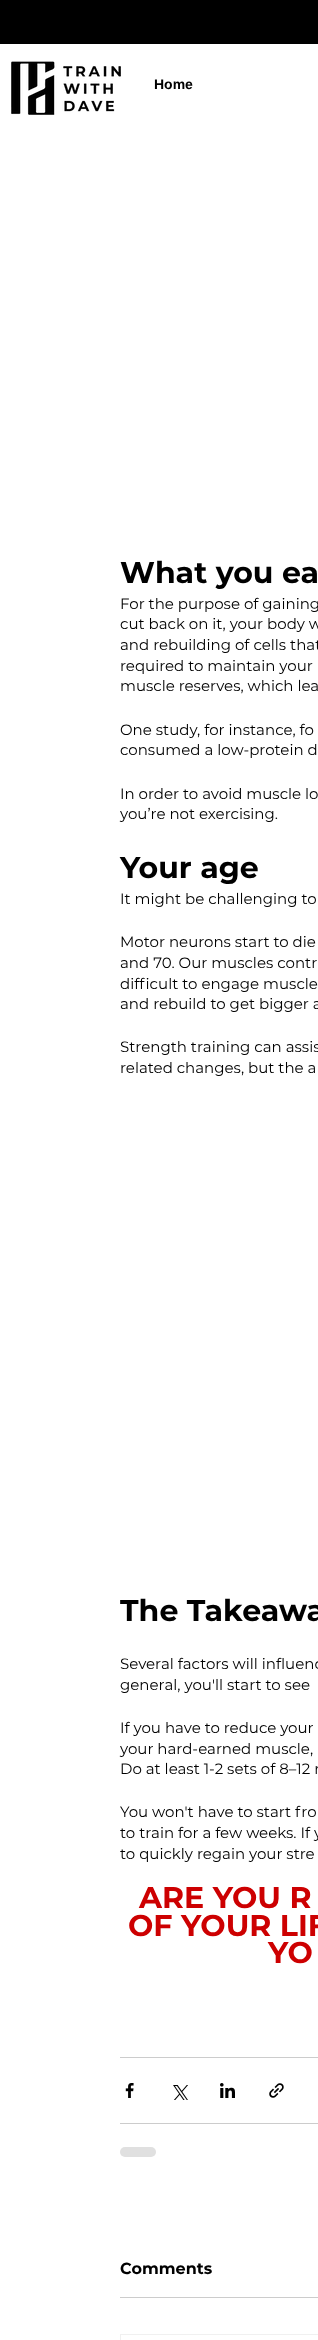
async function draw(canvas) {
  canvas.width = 318
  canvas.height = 2340
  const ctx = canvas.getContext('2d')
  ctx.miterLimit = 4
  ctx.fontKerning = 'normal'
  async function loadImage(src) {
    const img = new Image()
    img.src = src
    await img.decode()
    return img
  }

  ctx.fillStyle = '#fff'
  ctx.fillRect(0, 0, 318, 2340)
  ctx.fillStyle = '#000'
  ctx.fillRect(0, 0, 318, 44)
  ctx.drawImage(await loadImage('image0.png'), 11, 61, 110, 54)
  ctx.font = 'bold 14px Liberation Sans'
  ctx.fillText('Home', 154, 89)
  ctx.font = 'bold 30px Montserrat'
  ctx.fillText('What you ea', 120, 583)
  ctx.font = '15px Montserrat'
  ctx.fillText('For the purpose of gaining', 120, 609)
  ctx.fillText('cut back on it, your body w', 120, 629)
  ctx.fillText('and rebuilding of cells that', 120, 650)
  ctx.fillText('required to maintain your', 120, 671)
  ctx.fillText('muscle reserves, which lea', 120, 691)
  ctx.fillText('One study, for instance, fo', 120, 735)
  ctx.fillText('consumed a low-protein d', 120, 755)
  ctx.fillText('In order to avoid muscle lo', 120, 799)
  ctx.fillText('you’re not exercising.', 120, 819)
  ctx.font = 'bold 30px Montserrat'
  ctx.fillText('Your age', 120, 878)
  ctx.font = '15px Montserrat'
  ctx.fillText('It might be challenging to', 120, 904)
  ctx.fillText('Motor neurons start to die', 120, 947)
  ctx.fillText('and 70. Our muscles contr', 120, 968)
  ctx.fillText('difficult to engage muscle', 120, 989)
  ctx.fillText('and rebuild to get bigger a', 120, 1009)
  ctx.fillText('Strength training can assis', 120, 1052)
  ctx.fillText('related changes, but the a', 120, 1073)
  ctx.font = 'bold 30px Montserrat'
  ctx.fillText('The Takeawa', 120, 1621)
  ctx.font = '15px Montserrat'
  ctx.fillText('Several factors will influenc', 120, 1669)
  ctx.fillText('general, you\'ll start to see', 120, 1690)
  ctx.fillText('If you have to reduce your', 120, 1733)
  ctx.fillText('your hard-earned muscle,', 120, 1754)
  ctx.fillText('Do at least 1-2 sets of 8–12 r', 120, 1774)
  ctx.fillText('You won\'t have to start fro', 120, 1817)
  ctx.fillText('to train for a few weeks. If y', 120, 1838)
  ctx.fillText('to quickly regain your stre', 120, 1859)
  ctx.font = 'bold 30px Montserrat'
  ctx.fillStyle = '#cd0001'
  ctx.fillText('ARE YOU R', 139, 1908)
  ctx.fillText('OF YOUR LIF', 128, 1936)
  ctx.fillText('YO', 268, 1963)
  ctx.fillStyle = '#ccc'
  ctx.fillRect(120, 2057, 198, 1)
  ctx.drawImage(await loadImage('image1.png'), 125, 2083, 9, 15)
  ctx.drawImage(await loadImage('image2.png'), 173, 2085, 15, 15)
  ctx.drawImage(await loadImage('image3.png'), 220, 2083, 15, 15)
  ctx.drawImage(await loadImage('image4.png'), 269, 2083, 15, 15)
  ctx.fillRect(120, 2123, 198, 1)
  ctx.fillStyle = '#e0e0e0'
  ctx.beginPath()
  ctx.roundRect(120, 2147, 36, 10, 5)
  ctx.fill()
  ctx.font = 'bold 16px Montserrat'
  ctx.fillStyle = '#000'
  ctx.fillText('Comments', 120, 2274)
  ctx.fillStyle = '#ccc'
  ctx.fillRect(120, 2297, 198, 1)
  ctx.strokeStyle = '#f0f0f0'
  ctx.strokeRect(120.5, 2334.5, 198, 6)
}

draw(document.querySelector('canvas'))
